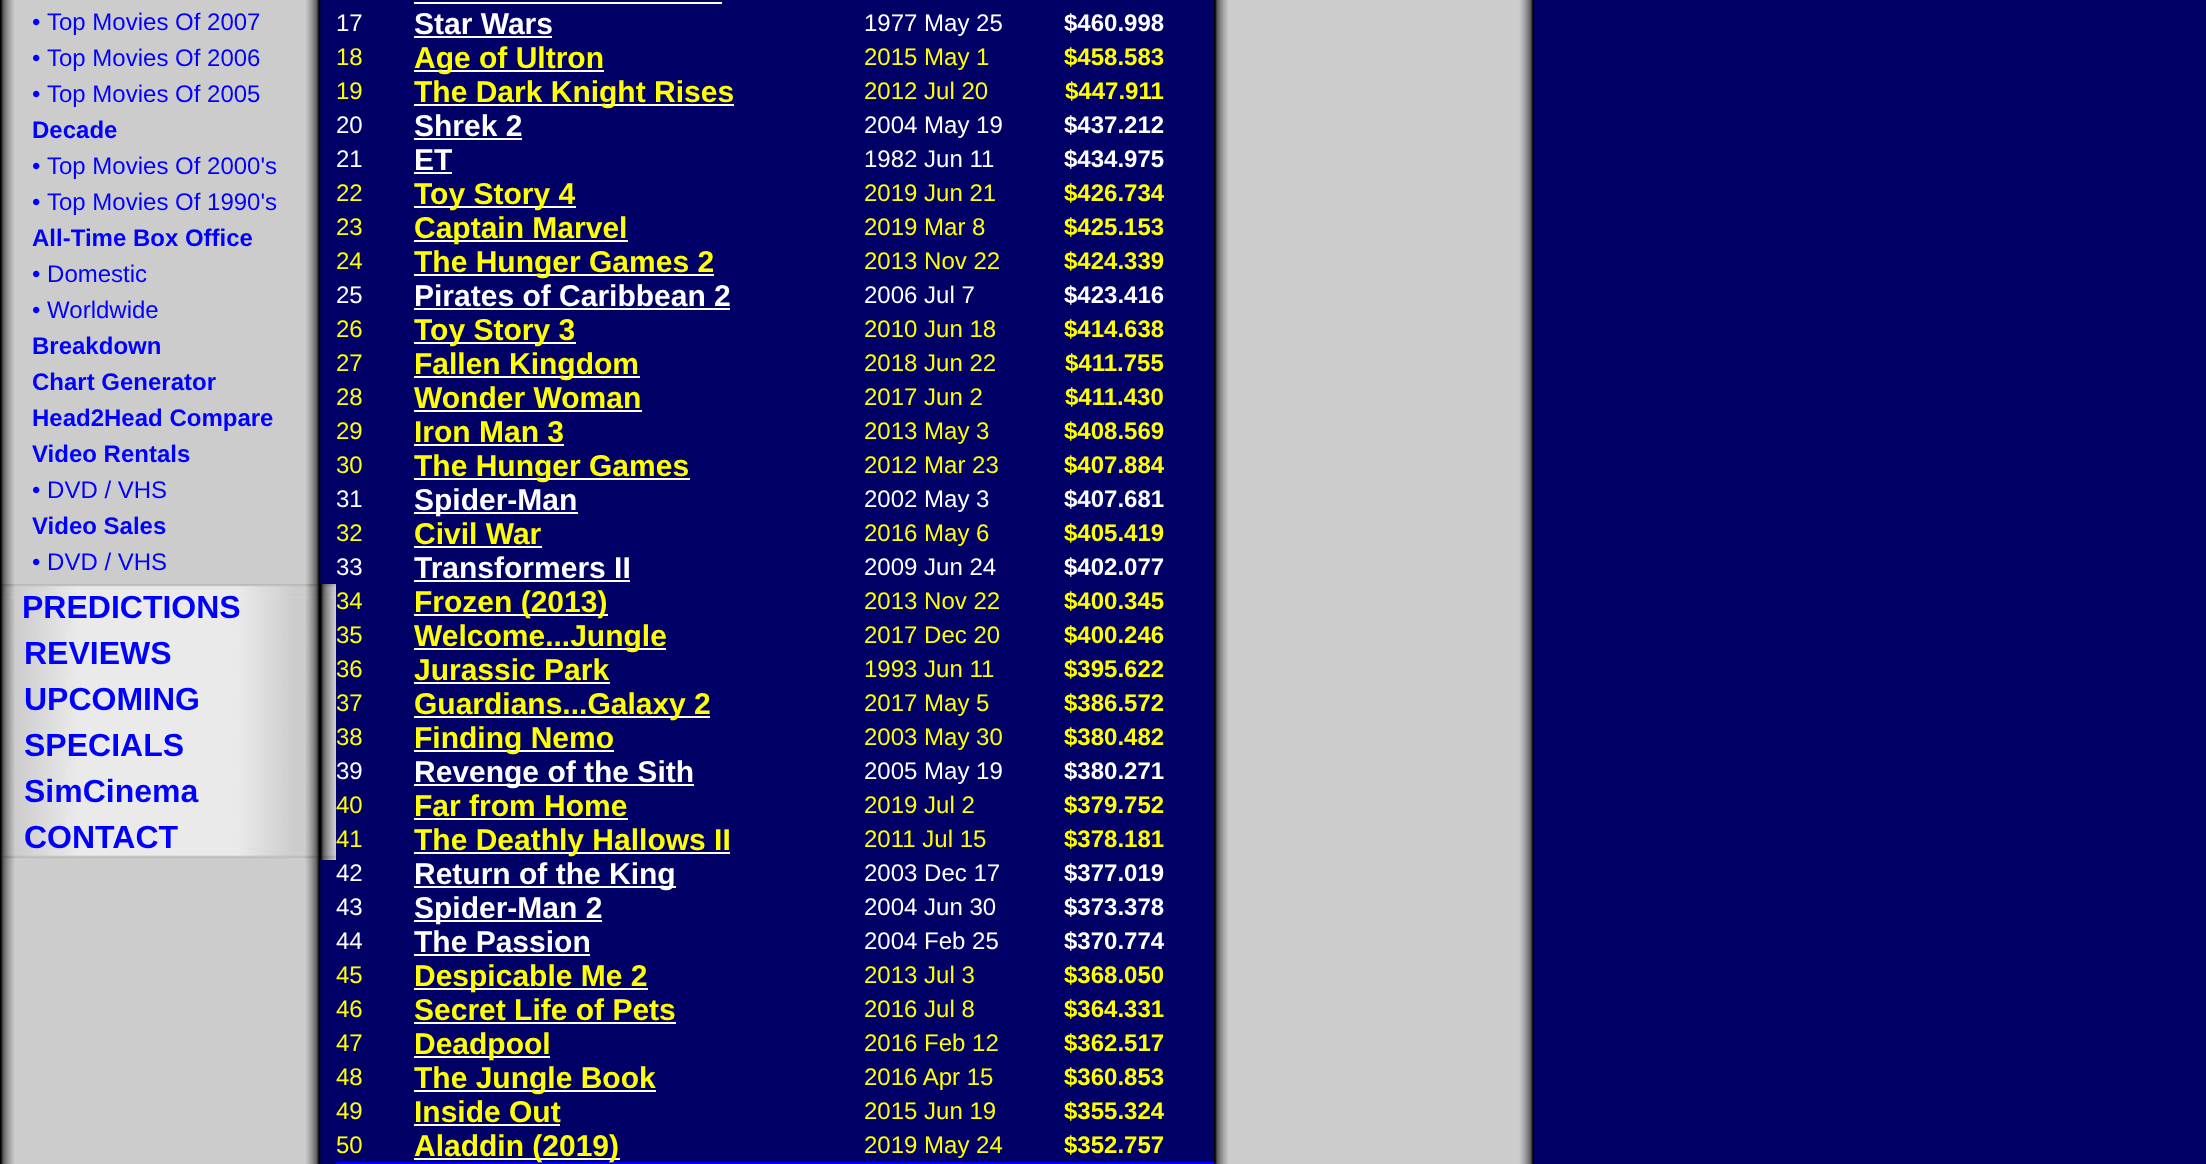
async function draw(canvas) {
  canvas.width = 2206
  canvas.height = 1164
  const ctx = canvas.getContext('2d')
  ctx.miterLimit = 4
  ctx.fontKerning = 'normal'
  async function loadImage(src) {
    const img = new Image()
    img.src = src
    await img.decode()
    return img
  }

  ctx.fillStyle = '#006'
  ctx.fillRect(0, 0, 2206, 1164)
  ctx.drawImage(await loadImage('image0.png'), 0, 0, 336, 1164)
  ctx.font = '24px Liberation Sans'
  ctx.fillStyle = '#00f'
  ctx.fillText('•', 32, 30)
  ctx.fillText('Top Movies Of 2007', 47, 30)
  ctx.fillText('•', 32, 66)
  ctx.fillText('Top Movies Of 2006', 47, 66)
  ctx.fillText('•', 32, 102)
  ctx.fillText('Top Movies Of 2005', 47, 102)
  ctx.font = 'bold 24px Liberation Sans'
  ctx.fillText('Decade', 32, 138)
  ctx.font = '24px Liberation Sans'
  ctx.fillText('•', 32, 174)
  ctx.fillText('Top Movies Of 2000\'s', 47, 174)
  ctx.fillText('•', 32, 210)
  ctx.fillText('Top Movies Of 1990\'s', 47, 210)
  ctx.font = 'bold 24px Liberation Sans'
  ctx.fillText('All-Time Box Office', 32, 246)
  ctx.font = '24px Liberation Sans'
  ctx.fillText('• Domestic', 32, 282)
  ctx.fillText('• Worldwide', 32, 318)
  ctx.font = 'bold 24px Liberation Sans'
  ctx.fillText('Breakdown', 32, 354)
  ctx.fillText('Chart Generator', 32, 390)
  ctx.fillText('Head2Head Compare', 32, 426)
  ctx.fillText('Video Rentals', 32, 462)
  ctx.font = '24px Liberation Sans'
  ctx.fillText('• DVD / VHS', 32, 498)
  ctx.font = 'bold 24px Liberation Sans'
  ctx.fillText('Video Sales', 32, 534)
  ctx.font = '24px Liberation Sans'
  ctx.fillText('• DVD / VHS', 32, 570)
  ctx.drawImage(await loadImage('image1.png'), 0, 584, 336, 46)
  ctx.font = 'bold 32px Liberation Sans'
  ctx.fillText('PREDICTIONS', 22, 618)
  ctx.drawImage(await loadImage('image2.png'), 0, 630, 336, 46)
  ctx.fillText('REVIEWS', 24, 664)
  ctx.drawImage(await loadImage('image2.png'), 0, 676, 336, 46)
  ctx.fillText('UPCOMING', 24, 710)
  ctx.drawImage(await loadImage('image2.png'), 0, 722, 336, 46)
  ctx.fillText('SPECIALS', 24, 756)
  ctx.drawImage(await loadImage('image2.png'), 0, 768, 336, 46)
  ctx.fillText('SimCinema', 24, 802)
  ctx.drawImage(await loadImage('image3.png'), 0, 814, 336, 46)
  ctx.fillText('CONTACT', 24, 848)
  ctx.fillStyle = '#fff'
  ctx.fillRect(414, 2, 308, 2)
  ctx.font = '24px Liberation Sans'
  ctx.fillText('17', 336, 31)
  ctx.font = 'bold 30px Liberation Sans'
  ctx.fillText('Star Wars', 414, 34)
  ctx.fillRect(414, 36, 138, 2)
  ctx.font = '24px Liberation Sans'
  ctx.fillText('1977 May 25', 864, 31)
  ctx.font = 'bold 24px Liberation Sans'
  ctx.fillText('$460.998', 1064, 31)
  ctx.font = '24px Liberation Sans'
  ctx.fillStyle = '#ff0'
  ctx.fillText('18', 336, 65)
  ctx.fillStyle = '#fff'
  ctx.fillRect(414, 70, 190, 2)
  ctx.font = 'bold 30px Liberation Sans'
  ctx.fillStyle = '#ff0'
  ctx.fillText('Age of Ultron', 414, 68)
  ctx.font = '24px Liberation Sans'
  ctx.fillText('2015 May 1', 864, 65)
  ctx.font = 'bold 24px Liberation Sans'
  ctx.fillText('$458.583', 1064, 65)
  ctx.font = '24px Liberation Sans'
  ctx.fillText('19', 336, 99)
  ctx.fillStyle = '#fff'
  ctx.fillRect(414, 104, 320, 2)
  ctx.font = 'bold 30px Liberation Sans'
  ctx.fillStyle = '#ff0'
  ctx.fillText('The Dark Knight Rises', 414, 102)
  ctx.font = '24px Liberation Sans'
  ctx.fillText('2012 Jul 20', 864, 99)
  ctx.font = 'bold 24px Liberation Sans'
  ctx.fillText('$447.911', 1065, 99)
  ctx.font = '24px Liberation Sans'
  ctx.fillStyle = '#fff'
  ctx.fillText('20', 336, 133)
  ctx.font = 'bold 30px Liberation Sans'
  ctx.fillText('Shrek 2', 414, 136)
  ctx.fillRect(414, 138, 108, 2)
  ctx.font = '24px Liberation Sans'
  ctx.fillText('2004 May 19', 864, 133)
  ctx.font = 'bold 24px Liberation Sans'
  ctx.fillText('$437.212', 1064, 133)
  ctx.font = '24px Liberation Sans'
  ctx.fillText('21', 336, 167)
  ctx.font = 'bold 30px Liberation Sans'
  ctx.fillText('ET', 414, 170)
  ctx.fillRect(414, 172, 38, 2)
  ctx.font = '24px Liberation Sans'
  ctx.fillText('1982 Jun 11', 864, 167)
  ctx.font = 'bold 24px Liberation Sans'
  ctx.fillText('$434.975', 1064, 167)
  ctx.font = '24px Liberation Sans'
  ctx.fillStyle = '#ff0'
  ctx.fillText('22', 336, 201)
  ctx.fillStyle = '#fff'
  ctx.fillRect(414, 206, 162, 2)
  ctx.font = 'bold 30px Liberation Sans'
  ctx.fillStyle = '#ff0'
  ctx.fillText('Toy Story 4', 414, 204)
  ctx.font = '24px Liberation Sans'
  ctx.fillText('2019 Jun 21', 864, 201)
  ctx.font = 'bold 24px Liberation Sans'
  ctx.fillText('$426.734', 1064, 201)
  ctx.font = '24px Liberation Sans'
  ctx.fillText('23', 336, 235)
  ctx.fillStyle = '#fff'
  ctx.fillRect(414, 240, 214, 2)
  ctx.font = 'bold 30px Liberation Sans'
  ctx.fillStyle = '#ff0'
  ctx.fillText('Captain Marvel', 414, 238)
  ctx.font = '24px Liberation Sans'
  ctx.fillText('2019 Mar 8', 864, 235)
  ctx.font = 'bold 24px Liberation Sans'
  ctx.fillText('$425.153', 1064, 235)
  ctx.font = '24px Liberation Sans'
  ctx.fillText('24', 336, 269)
  ctx.fillStyle = '#fff'
  ctx.fillRect(414, 274, 300, 2)
  ctx.font = 'bold 30px Liberation Sans'
  ctx.fillStyle = '#ff0'
  ctx.fillText('The Hunger Games 2', 414, 272)
  ctx.font = '24px Liberation Sans'
  ctx.fillText('2013 Nov 22', 864, 269)
  ctx.font = 'bold 24px Liberation Sans'
  ctx.fillText('$424.339', 1064, 269)
  ctx.font = '24px Liberation Sans'
  ctx.fillStyle = '#fff'
  ctx.fillText('25', 336, 303)
  ctx.font = 'bold 30px Liberation Sans'
  ctx.fillText('Pirates of Caribbean 2', 414, 306)
  ctx.fillRect(414, 308, 316, 2)
  ctx.font = '24px Liberation Sans'
  ctx.fillText('2006 Jul 7', 864, 303)
  ctx.font = 'bold 24px Liberation Sans'
  ctx.fillText('$423.416', 1064, 303)
  ctx.font = '24px Liberation Sans'
  ctx.fillStyle = '#ff0'
  ctx.fillText('26', 336, 337)
  ctx.fillStyle = '#fff'
  ctx.fillRect(414, 342, 162, 2)
  ctx.font = 'bold 30px Liberation Sans'
  ctx.fillStyle = '#ff0'
  ctx.fillText('Toy Story 3', 414, 340)
  ctx.font = '24px Liberation Sans'
  ctx.fillText('2010 Jun 18', 864, 337)
  ctx.font = 'bold 24px Liberation Sans'
  ctx.fillText('$414.638', 1064, 337)
  ctx.font = '24px Liberation Sans'
  ctx.fillText('27', 336, 371)
  ctx.fillStyle = '#fff'
  ctx.fillRect(414, 376, 226, 2)
  ctx.font = 'bold 30px Liberation Sans'
  ctx.fillStyle = '#ff0'
  ctx.fillText('Fallen Kingdom', 414, 374)
  ctx.font = '24px Liberation Sans'
  ctx.fillText('2018 Jun 22', 864, 371)
  ctx.font = 'bold 24px Liberation Sans'
  ctx.fillText('$411.755', 1065, 371)
  ctx.font = '24px Liberation Sans'
  ctx.fillText('28', 336, 405)
  ctx.font = 'bold 30px Liberation Sans'
  ctx.fillText('Wonder Woman', 414, 408)
  ctx.fillStyle = '#fff'
  ctx.fillRect(414, 410, 228, 2)
  ctx.font = '24px Liberation Sans'
  ctx.fillStyle = '#ff0'
  ctx.fillText('2017 Jun 2', 864, 405)
  ctx.font = 'bold 24px Liberation Sans'
  ctx.fillText('$411.430', 1065, 405)
  ctx.font = '24px Liberation Sans'
  ctx.fillText('29', 336, 439)
  ctx.font = 'bold 30px Liberation Sans'
  ctx.fillText('Iron Man 3', 414, 442)
  ctx.fillStyle = '#fff'
  ctx.fillRect(414, 444, 150, 2)
  ctx.font = '24px Liberation Sans'
  ctx.fillStyle = '#ff0'
  ctx.fillText('2013 May 3', 864, 439)
  ctx.font = 'bold 24px Liberation Sans'
  ctx.fillText('$408.569', 1064, 439)
  ctx.font = '24px Liberation Sans'
  ctx.fillText('30', 336, 473)
  ctx.fillStyle = '#fff'
  ctx.fillRect(414, 478, 276, 2)
  ctx.font = 'bold 30px Liberation Sans'
  ctx.fillStyle = '#ff0'
  ctx.fillText('The Hunger Games', 414, 476)
  ctx.font = '24px Liberation Sans'
  ctx.fillText('2012 Mar 23', 864, 473)
  ctx.font = 'bold 24px Liberation Sans'
  ctx.fillText('$407.884', 1064, 473)
  ctx.font = '24px Liberation Sans'
  ctx.fillStyle = '#fff'
  ctx.fillText('31', 336, 507)
  ctx.fillRect(414, 512, 164, 2)
  ctx.font = 'bold 30px Liberation Sans'
  ctx.fillText('Spider-Man', 414, 510)
  ctx.font = '24px Liberation Sans'
  ctx.fillText('2002 May 3', 864, 507)
  ctx.font = 'bold 24px Liberation Sans'
  ctx.fillText('$407.681', 1064, 507)
  ctx.font = '24px Liberation Sans'
  ctx.fillStyle = '#ff0'
  ctx.fillText('32', 336, 541)
  ctx.font = 'bold 30px Liberation Sans'
  ctx.fillText('Civil War', 414, 544)
  ctx.fillStyle = '#fff'
  ctx.fillRect(414, 546, 128, 2)
  ctx.font = '24px Liberation Sans'
  ctx.fillStyle = '#ff0'
  ctx.fillText('2016 May 6', 864, 541)
  ctx.font = 'bold 24px Liberation Sans'
  ctx.fillText('$405.419', 1064, 541)
  ctx.font = '24px Liberation Sans'
  ctx.fillStyle = '#fff'
  ctx.fillText('33', 336, 575)
  ctx.font = 'bold 30px Liberation Sans'
  ctx.fillText('Transformers II', 414, 578)
  ctx.fillRect(414, 580, 216, 2)
  ctx.font = '24px Liberation Sans'
  ctx.fillText('2009 Jun 24', 864, 575)
  ctx.font = 'bold 24px Liberation Sans'
  ctx.fillText('$402.077', 1064, 575)
  ctx.font = '24px Liberation Sans'
  ctx.fillStyle = '#ff0'
  ctx.fillText('34', 336, 609)
  ctx.fillStyle = '#fff'
  ctx.fillRect(414, 614, 194, 2)
  ctx.font = 'bold 30px Liberation Sans'
  ctx.fillStyle = '#ff0'
  ctx.fillText('Frozen (2013)', 414, 612)
  ctx.font = '24px Liberation Sans'
  ctx.fillText('2013 Nov 22', 864, 609)
  ctx.font = 'bold 24px Liberation Sans'
  ctx.fillText('$400.345', 1064, 609)
  ctx.font = '24px Liberation Sans'
  ctx.fillText('35', 336, 643)
  ctx.fillStyle = '#fff'
  ctx.fillRect(414, 648, 252, 2)
  ctx.font = 'bold 30px Liberation Sans'
  ctx.fillStyle = '#ff0'
  ctx.fillText('Welcome...Jungle', 414, 646)
  ctx.font = '24px Liberation Sans'
  ctx.fillText('2017 Dec 20', 864, 643)
  ctx.font = 'bold 24px Liberation Sans'
  ctx.fillText('$400.246', 1064, 643)
  ctx.font = '24px Liberation Sans'
  ctx.fillText('36', 336, 677)
  ctx.font = 'bold 30px Liberation Sans'
  ctx.fillText('Jurassic Park', 414, 680)
  ctx.fillStyle = '#fff'
  ctx.fillRect(414, 682, 196, 2)
  ctx.font = '24px Liberation Sans'
  ctx.fillStyle = '#ff0'
  ctx.fillText('1993 Jun 11', 864, 677)
  ctx.font = 'bold 24px Liberation Sans'
  ctx.fillText('$395.622', 1064, 677)
  ctx.font = '24px Liberation Sans'
  ctx.fillText('37', 336, 711)
  ctx.fillStyle = '#fff'
  ctx.fillRect(414, 716, 296, 2)
  ctx.font = 'bold 30px Liberation Sans'
  ctx.fillStyle = '#ff0'
  ctx.fillText('Guardians...Galaxy 2', 414, 714)
  ctx.font = '24px Liberation Sans'
  ctx.fillText('2017 May 5', 864, 711)
  ctx.font = 'bold 24px Liberation Sans'
  ctx.fillText('$386.572', 1064, 711)
  ctx.font = '24px Liberation Sans'
  ctx.fillText('38', 336, 745)
  ctx.fillStyle = '#fff'
  ctx.fillRect(414, 750, 200, 2)
  ctx.font = 'bold 30px Liberation Sans'
  ctx.fillStyle = '#ff0'
  ctx.fillText('Finding Nemo', 414, 748)
  ctx.font = '24px Liberation Sans'
  ctx.fillText('2003 May 30', 864, 745)
  ctx.font = 'bold 24px Liberation Sans'
  ctx.fillText('$380.482', 1064, 745)
  ctx.font = '24px Liberation Sans'
  ctx.fillStyle = '#fff'
  ctx.fillText('39', 336, 779)
  ctx.fillRect(414, 784, 280, 2)
  ctx.font = 'bold 30px Liberation Sans'
  ctx.fillText('Revenge of the Sith', 414, 782)
  ctx.font = '24px Liberation Sans'
  ctx.fillText('2005 May 19', 864, 779)
  ctx.font = 'bold 24px Liberation Sans'
  ctx.fillText('$380.271', 1064, 779)
  ctx.font = '24px Liberation Sans'
  ctx.fillStyle = '#ff0'
  ctx.fillText('40', 336, 813)
  ctx.font = 'bold 30px Liberation Sans'
  ctx.fillText('Far from Home', 414, 816)
  ctx.fillStyle = '#fff'
  ctx.fillRect(414, 818, 214, 2)
  ctx.font = '24px Liberation Sans'
  ctx.fillStyle = '#ff0'
  ctx.fillText('2019 Jul 2', 864, 813)
  ctx.font = 'bold 24px Liberation Sans'
  ctx.fillText('$379.752', 1064, 813)
  ctx.font = '24px Liberation Sans'
  ctx.fillText('41', 336, 847)
  ctx.fillStyle = '#fff'
  ctx.fillRect(414, 852, 316, 2)
  ctx.font = 'bold 30px Liberation Sans'
  ctx.fillStyle = '#ff0'
  ctx.fillText('The Deathly Hallows II', 414, 850)
  ctx.font = '24px Liberation Sans'
  ctx.fillText('2011 Jul 15', 864, 847)
  ctx.font = 'bold 24px Liberation Sans'
  ctx.fillText('$378.181', 1064, 847)
  ctx.font = '24px Liberation Sans'
  ctx.fillStyle = '#fff'
  ctx.fillText('42', 336, 881)
  ctx.fillRect(414, 886, 262, 2)
  ctx.font = 'bold 30px Liberation Sans'
  ctx.fillText('Return of the King', 414, 884)
  ctx.font = '24px Liberation Sans'
  ctx.fillText('2003 Dec 17', 864, 881)
  ctx.font = 'bold 24px Liberation Sans'
  ctx.fillText('$377.019', 1064, 881)
  ctx.font = '24px Liberation Sans'
  ctx.fillText('43', 336, 915)
  ctx.fillRect(414, 920, 188, 2)
  ctx.font = 'bold 30px Liberation Sans'
  ctx.fillText('Spider-Man 2', 414, 918)
  ctx.font = '24px Liberation Sans'
  ctx.fillText('2004 Jun 30', 864, 915)
  ctx.font = 'bold 24px Liberation Sans'
  ctx.fillText('$373.378', 1064, 915)
  ctx.font = '24px Liberation Sans'
  ctx.fillText('44', 336, 949)
  ctx.font = 'bold 30px Liberation Sans'
  ctx.fillText('The Passion', 414, 952)
  ctx.fillRect(414, 954, 176, 2)
  ctx.font = '24px Liberation Sans'
  ctx.fillText('2004 Feb 25', 864, 949)
  ctx.font = 'bold 24px Liberation Sans'
  ctx.fillText('$370.774', 1064, 949)
  ctx.font = '24px Liberation Sans'
  ctx.fillStyle = '#ff0'
  ctx.fillText('45', 336, 983)
  ctx.fillStyle = '#fff'
  ctx.fillRect(414, 988, 234, 2)
  ctx.font = 'bold 30px Liberation Sans'
  ctx.fillStyle = '#ff0'
  ctx.fillText('Despicable Me 2', 414, 986)
  ctx.font = '24px Liberation Sans'
  ctx.fillText('2013 Jul 3', 864, 983)
  ctx.font = 'bold 24px Liberation Sans'
  ctx.fillText('$368.050', 1064, 983)
  ctx.font = '24px Liberation Sans'
  ctx.fillText('46', 336, 1017)
  ctx.font = 'bold 30px Liberation Sans'
  ctx.fillText('Secret Life of Pets', 414, 1020)
  ctx.fillStyle = '#fff'
  ctx.fillRect(414, 1022, 262, 2)
  ctx.font = '24px Liberation Sans'
  ctx.fillStyle = '#ff0'
  ctx.fillText('2016 Jul 8', 864, 1017)
  ctx.font = 'bold 24px Liberation Sans'
  ctx.fillText('$364.331', 1064, 1017)
  ctx.font = '24px Liberation Sans'
  ctx.fillText('47', 336, 1051)
  ctx.fillStyle = '#fff'
  ctx.fillRect(414, 1056, 136, 2)
  ctx.font = 'bold 30px Liberation Sans'
  ctx.fillStyle = '#ff0'
  ctx.fillText('Deadpool', 414, 1054)
  ctx.font = '24px Liberation Sans'
  ctx.fillText('2016 Feb 12', 864, 1051)
  ctx.font = 'bold 24px Liberation Sans'
  ctx.fillText('$362.517', 1064, 1051)
  ctx.font = '24px Liberation Sans'
  ctx.fillText('48', 336, 1085)
  ctx.fillStyle = '#fff'
  ctx.fillRect(414, 1090, 242, 2)
  ctx.font = 'bold 30px Liberation Sans'
  ctx.fillStyle = '#ff0'
  ctx.fillText('The Jungle Book', 414, 1088)
  ctx.font = '24px Liberation Sans'
  ctx.fillText('2016 Apr 15', 864, 1085)
  ctx.font = 'bold 24px Liberation Sans'
  ctx.fillText('$360.853', 1064, 1085)
  ctx.font = '24px Liberation Sans'
  ctx.fillText('49', 336, 1119)
  ctx.font = 'bold 30px Liberation Sans'
  ctx.fillText('Inside Out', 414, 1122)
  ctx.fillStyle = '#fff'
  ctx.fillRect(414, 1124, 146, 2)
  ctx.font = '24px Liberation Sans'
  ctx.fillStyle = '#ff0'
  ctx.fillText('2015 Jun 19', 864, 1119)
  ctx.font = 'bold 24px Liberation Sans'
  ctx.fillText('$355.324', 1064, 1119)
  ctx.font = '24px Liberation Sans'
  ctx.fillText('50', 336, 1153)
  ctx.fillStyle = '#fff'
  ctx.fillRect(414, 1158, 206, 2)
  ctx.fillStyle = '#00f'
  ctx.fillRect(336, 1162, 878, 2)
  ctx.font = 'bold 30px Liberation Sans'
  ctx.fillStyle = '#ff0'
  ctx.fillText('Aladdin (2019)', 414, 1156)
  ctx.font = '24px Liberation Sans'
  ctx.fillText('2019 May 24', 864, 1153)
  ctx.font = 'bold 24px Liberation Sans'
  ctx.fillText('$352.757', 1064, 1153)
  ctx.drawImage(await loadImage('image4.png'), 1214, 0, 320, 1164)
}

draw(document.querySelector('canvas'))
